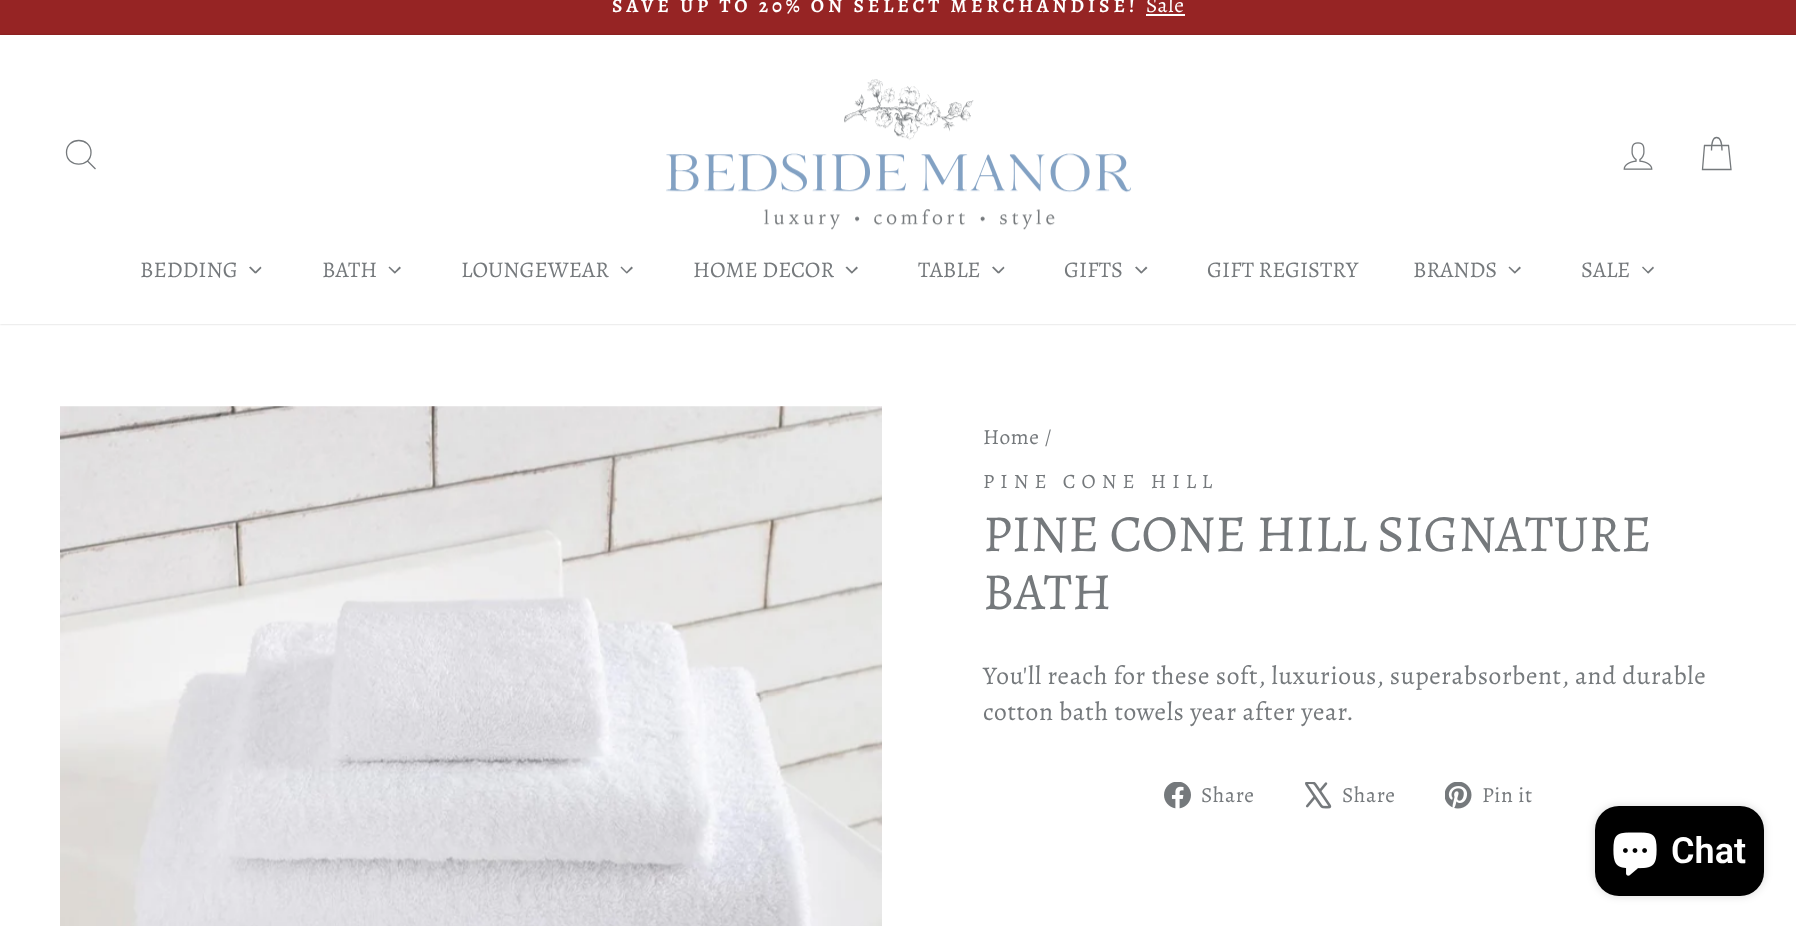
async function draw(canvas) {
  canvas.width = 1796
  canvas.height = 926
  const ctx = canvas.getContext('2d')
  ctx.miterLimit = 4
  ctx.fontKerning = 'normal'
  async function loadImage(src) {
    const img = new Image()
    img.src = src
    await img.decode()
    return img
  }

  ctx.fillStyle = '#fff'
  ctx.fillRect(0, 0, 1796, 926)
  ctx.fillStyle = '#962424'
  ctx.fillRect(0, 0, 1796, 35)
  ctx.letterSpacing = '3.9px'
  ctx.font = '600 19.5px Alegreya'
  ctx.fillStyle = '#fff'
  ctx.fillText('SAVE UP TO 20% ON SELECT MERCHANDISE!', 612, 12)
  ctx.letterSpacing = '0.65px'
  ctx.font = '21.5px Alegreya'
  ctx.fillText('Sale', 1146, 12)
  ctx.fillRect(1146, 14, 39, 2)
  ctx.save()
  ctx.beginPath()
  ctx.moveTo(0, 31)
  ctx.lineTo(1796, 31)
  ctx.lineTo(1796, 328)
  ctx.lineTo(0, 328)
  ctx.closePath()
  ctx.moveTo(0, 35)
  ctx.lineTo(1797, 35)
  ctx.lineTo(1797, 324)
  ctx.lineTo(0, 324)
  ctx.closePath()
  ctx.clip('evenodd')
  ctx.fillStyle = '#00000033'
  ctx.filter = 'blur(1px)'
  ctx.beginPath()
  ctx.rect(0, 35, 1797, 289)
  ctx.fill()
  ctx.filter = 'none'
  ctx.restore()
  ctx.beginPath()
  ctx.moveTo(91, 152.5)
  ctx.bezierCurveTo(91, 168, 66.5, 168, 66.5, 152.5)
  ctx.bezierCurveTo(66.5, 136.5, 91, 136.5, 91, 152.5)
  ctx.closePath()
  ctx.moveTo(95.5, 169)
  ctx.lineTo(87.5, 161)
  ctx.strokeStyle = '#75797c'
  ctx.lineWidth = 1.3
  ctx.stroke()
  ctx.drawImage(await loadImage('image0.png'), 666, 79, 465, 151)
  ctx.drawImage(await loadImage('image1.png'), 1623, 142, 30, 28)
  ctx.beginPath()
  ctx.moveTo(1711.5, 150.5)
  ctx.bezierCurveTo(1711.5, 140, 1713.5, 137.5, 1716.5, 137.5)
  ctx.bezierCurveTo(1719.5, 137.5, 1722, 140, 1722, 150.5)
  ctx.moveTo(1704.5, 145.5)
  ctx.lineTo(1728.5, 145.5)
  ctx.lineTo(1731, 169.5)
  ctx.lineTo(1702.5, 169.5)
  ctx.closePath()
  ctx.stroke()
  ctx.letterSpacing = '0px'
  ctx.font = '22.5px Alegreya'
  ctx.fillStyle = '#75797c'
  ctx.fillText('BEDDING', 140, 277)
  ctx.beginPath()
  ctx.moveTo(260.5, 266.5)
  ctx.lineTo(261.5, 268)
  ctx.lineTo(256, 273.5)
  ctx.lineTo(254.5, 272.5)
  ctx.closePath()
  ctx.fill()
  ctx.beginPath()
  ctx.moveTo(250.5, 266.5)
  ctx.lineTo(256.5, 272.5)
  ctx.lineTo(255, 273.5)
  ctx.lineTo(249, 267.5)
  ctx.closePath()
  ctx.fill()
  ctx.fillText('BATH', 322, 277)
  ctx.beginPath()
  ctx.moveTo(399.5, 266.5)
  ctx.lineTo(401, 268)
  ctx.lineTo(395, 273.5)
  ctx.lineTo(394, 272.5)
  ctx.closePath()
  ctx.fill()
  ctx.beginPath()
  ctx.moveTo(389.5, 266.5)
  ctx.lineTo(396, 272.5)
  ctx.lineTo(394.5, 273.5)
  ctx.lineTo(388.5, 267.5)
  ctx.closePath()
  ctx.fill()
  ctx.fillText('LOUNGEWEAR', 461, 277)
  ctx.beginPath()
  ctx.moveTo(631.5, 266.5)
  ctx.lineTo(633, 268)
  ctx.lineTo(627, 273.5)
  ctx.lineTo(626, 272.5)
  ctx.closePath()
  ctx.fill()
  ctx.beginPath()
  ctx.moveTo(621.5, 266.5)
  ctx.lineTo(627.5, 272.5)
  ctx.lineTo(626.5, 273.5)
  ctx.lineTo(620.5, 267.5)
  ctx.closePath()
  ctx.fill()
  ctx.fillText('HOME DECOR', 693, 277)
  ctx.beginPath()
  ctx.moveTo(856.5, 266.5)
  ctx.lineTo(858, 268)
  ctx.lineTo(852, 273.5)
  ctx.lineTo(851, 272.5)
  ctx.closePath()
  ctx.fill()
  ctx.beginPath()
  ctx.moveTo(847, 266.5)
  ctx.lineTo(853, 272.5)
  ctx.lineTo(851.5, 273.5)
  ctx.lineTo(845.5, 267.5)
  ctx.closePath()
  ctx.fill()
  ctx.fillText('TABLE', 918, 277)
  ctx.beginPath()
  ctx.moveTo(1003.5, 266.5)
  ctx.lineTo(1004.5, 268)
  ctx.lineTo(999, 273.5)
  ctx.lineTo(997.5, 272.5)
  ctx.closePath()
  ctx.fill()
  ctx.beginPath()
  ctx.moveTo(993.5, 266.5)
  ctx.lineTo(999.5, 272.5)
  ctx.lineTo(998, 273.5)
  ctx.lineTo(992, 267.5)
  ctx.closePath()
  ctx.fill()
  ctx.fillText('GIFTS', 1064, 277)
  ctx.beginPath()
  ctx.moveTo(1146, 266.5)
  ctx.lineTo(1147.5, 268)
  ctx.lineTo(1141.5, 273.5)
  ctx.lineTo(1140.5, 272.5)
  ctx.closePath()
  ctx.fill()
  ctx.beginPath()
  ctx.moveTo(1136.5, 266.5)
  ctx.lineTo(1142.5, 272.5)
  ctx.lineTo(1141, 273.5)
  ctx.lineTo(1135, 267.5)
  ctx.closePath()
  ctx.fill()
  ctx.fillText('GIFT REGISTRY', 1207, 277)
  ctx.fillText('BRANDS', 1413, 277)
  ctx.beginPath()
  ctx.moveTo(1519.5, 266.5)
  ctx.lineTo(1521, 268)
  ctx.lineTo(1515, 273.5)
  ctx.lineTo(1514, 272.5)
  ctx.closePath()
  ctx.fill()
  ctx.beginPath()
  ctx.moveTo(1509.5, 266.5)
  ctx.lineTo(1516, 272.5)
  ctx.lineTo(1514.5, 273.5)
  ctx.lineTo(1508.5, 267.5)
  ctx.closePath()
  ctx.fill()
  ctx.fillText('SALE', 1581, 277)
  ctx.beginPath()
  ctx.moveTo(1653, 266.5)
  ctx.lineTo(1654, 268)
  ctx.lineTo(1648.5, 273.5)
  ctx.lineTo(1647, 272.5)
  ctx.closePath()
  ctx.fill()
  ctx.beginPath()
  ctx.moveTo(1643, 266.5)
  ctx.lineTo(1649, 272.5)
  ctx.lineTo(1648, 273.5)
  ctx.lineTo(1642, 267.5)
  ctx.closePath()
  ctx.fill()
  ctx.drawImage(await loadImage('image2.png'), 60, 406, 822, 520)
  ctx.letterSpacing = '0.65px'
  ctx.font = '21.5px Alegreya'
  ctx.fillText('Home /', 983, 444)
  ctx.letterSpacing = '6.1px'
  ctx.font = '20.4px Alegreya'
  ctx.fillText('PINE CONE HILL', 983, 488)
  ctx.letterSpacing = '0px'
  ctx.font = '52.25px Alegreya'
  ctx.fillText('PINE CONE HILL SIGNATURE', 983, 551)
  ctx.fillText('BATH', 983, 609)
  ctx.letterSpacing = '0.65px'
  ctx.font = '25.5px Alegreya'
  ctx.fillText('You\'ll reach for these soft, luxurious, superabsorbent, and durable', 983, 684)
  ctx.fillText('cotton bath towels year after year.', 983, 720)
  ctx.drawImage(await loadImage('image3.png'), 1164, 782, 27, 27)
  ctx.font = '21.5px Alegreya'
  ctx.fillText('Share', 1201, 802)
  ctx.drawImage(await loadImage('image4.png'), 1305, 782, 27, 27)
  ctx.fillText('Share', 1342, 802)
  ctx.drawImage(await loadImage('image5.png'), 1445, 782, 27, 27)
  ctx.fillText('Pin it', 1482, 802)
  ctx.fillStyle = '#00000026'
  ctx.filter = 'blur(4px)'
  ctx.beginPath()
  ctx.roundRect(1595, 806, 169, 90, 24)
  ctx.fill()
  ctx.filter = 'none'
  ctx.fillStyle = '#000'
  ctx.beginPath()
  ctx.roundRect(1595, 806, 169, 90, 24)
  ctx.fill()
  ctx.drawImage(await loadImage('image6.png'), 1613, 832, 44, 44)
  ctx.letterSpacing = '0px'
  ctx.font = '600 36px Roboto'
  ctx.fillStyle = '#fff'
  ctx.fillText('Chat', 1671, 863)
}

draw(document.querySelector('canvas'))
